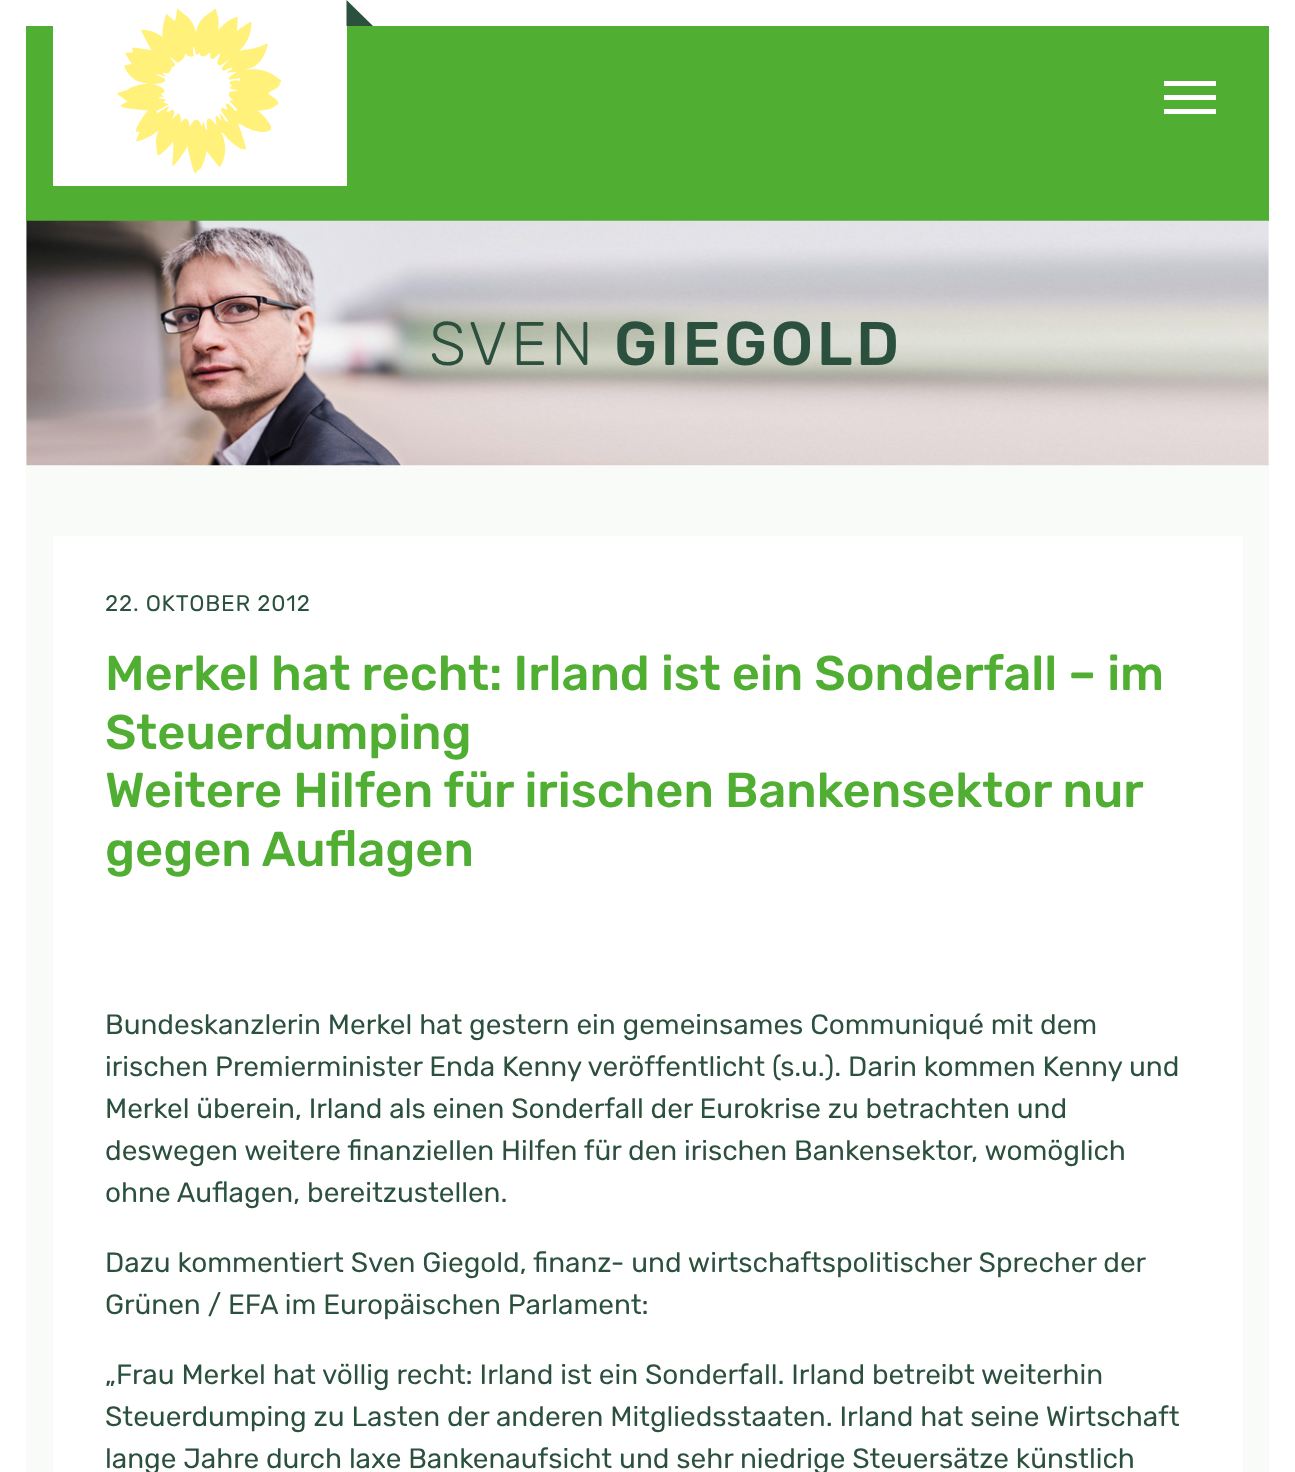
async function draw(canvas) {
  canvas.width = 1295
  canvas.height = 1472
  const ctx = canvas.getContext('2d')
  ctx.miterLimit = 4
  ctx.fontKerning = 'normal'
  async function loadImage(src) {
    const img = new Image()
    img.src = src
    await img.decode()
    return img
  }

  ctx.fillStyle = '#fff'
  ctx.fillRect(0, 0, 1295, 1472)
  ctx.fillStyle = '#50af33'
  ctx.fillRect(26, 26, 1243, 195)
  ctx.fillStyle = '#fff'
  ctx.fillRect(1164, 95, 52, 5)
  ctx.fillRect(1164, 81, 52, 5)
  ctx.fillRect(1164, 109, 52, 5)
  ctx.fillStyle = '#f8fbf7'
  ctx.fillRect(26, 221, 1243, 1251)
  ctx.fillStyle = '#fff'
  ctx.fillRect(53, 26, 294, 160)
  ctx.drawImage(await loadImage('image0.png'), 117, 8, 165, 166)
  ctx.fillStyle = '#2b503e'
  ctx.beginPath()
  ctx.moveTo(346.5, 26)
  ctx.lineTo(346.5, 0)
  ctx.lineTo(373, 26)
  ctx.closePath()
  ctx.fill()
  ctx.drawImage(await loadImage('image1.png'), 26, 220, 1243, 246)
  ctx.letterSpacing = '3.5px'
  ctx.font = '300 61.5px Rubik'
  ctx.fillText('SVEN', 429, 365)
  ctx.font = '500 61.5px Rubik'
  ctx.fillText('GIEGOLD', 614, 365)
  ctx.fillStyle = '#fff'
  ctx.fillRect(53, 536, 1190, 936)
  ctx.letterSpacing = '0.8px'
  ctx.font = '22.5px Rubik'
  ctx.fillStyle = '#2b503e'
  ctx.fillText('22. OKTOBER 2012', 105, 611)
  ctx.letterSpacing = '0px'
  ctx.font = '500 48.75px Rubik'
  ctx.fillStyle = '#50af33'
  ctx.fillText('Merkel hat recht: Irland ist ein Sonderfall – im', 105, 690)
  ctx.fillText('Steuerdumping', 105, 749)
  ctx.fillText('Weitere Hilfen für irischen Bankensektor nur', 105, 807)
  ctx.fillText('gegen Auflagen', 105, 866)
  ctx.font = '28px Rubik'
  ctx.fillStyle = '#2b503e'
  ctx.fillText('Bundeskanzlerin Merkel hat gestern ein gemeinsames Communiqué mit dem', 105, 1034)
  ctx.fillText('irischen Premierminister Enda Kenny veröffentlicht (s.u.). Darin kommen Kenny und', 105, 1076)
  ctx.fillText('Merkel überein, Irland als einen Sonderfall der Eurokrise zu betrachten und', 105, 1118)
  ctx.fillText('deswegen weitere finanziellen Hilfen für den irischen Bankensektor, womöglich', 105, 1160)
  ctx.fillText('ohne Auflagen, bereitzustellen.', 105, 1202)
  ctx.fillText('Dazu kommentiert Sven Giegold, finanz- und wirtschaftspolitischer Sprecher der', 105, 1272)
  ctx.fillText('Grünen / EFA im Europäischen Parlament:', 105, 1314)
  ctx.fillText('„Frau Merkel hat völlig recht: Irland ist ein Sonderfall. Irland betreibt weiterhin', 105, 1384)
  ctx.fillText('Steuerdumping zu Lasten der anderen Mitgliedsstaaten. Irland hat seine Wirtschaft', 105, 1426)
  ctx.fillText('lange Jahre durch laxe Bankenaufsicht und sehr niedrige Steuersätze künstlich', 105, 1468)
}

draw(document.querySelector('canvas'))
